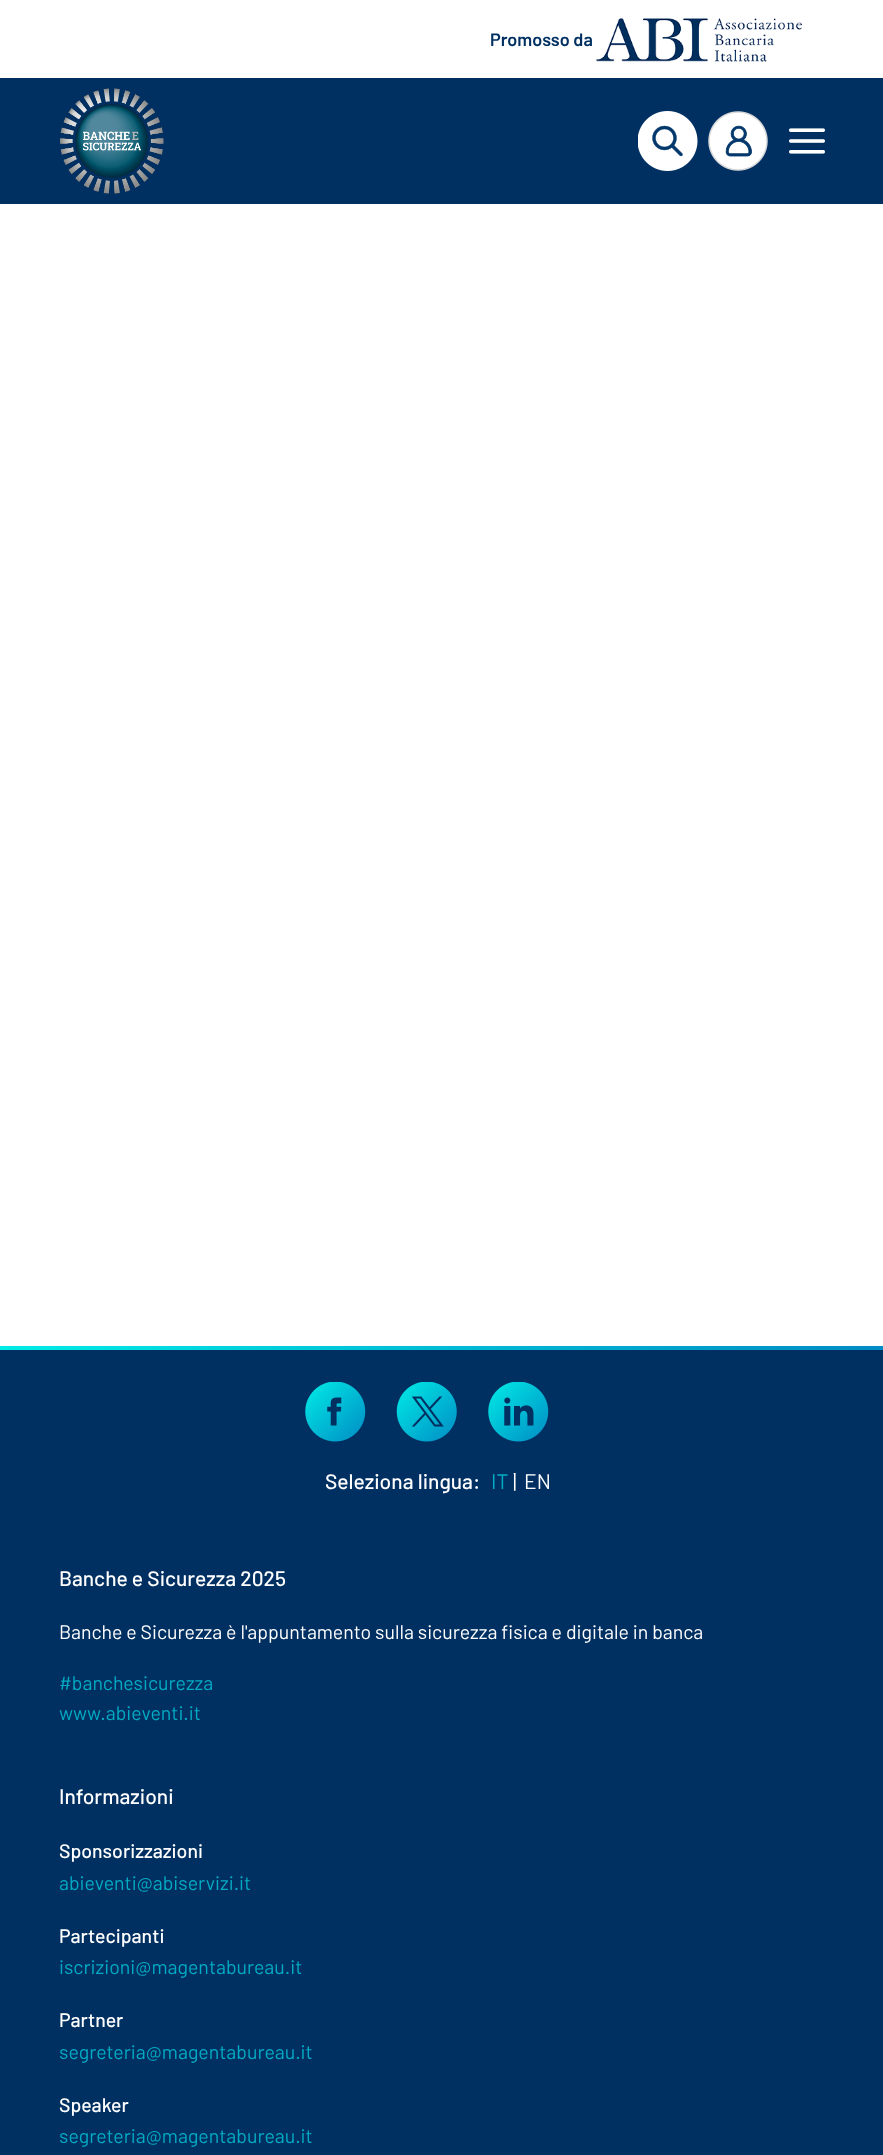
async function draw(canvas) {
  canvas.width = 883
  canvas.height = 2155
  const ctx = canvas.getContext('2d')
  ctx.miterLimit = 4
  ctx.fontKerning = 'normal'
  async function loadImage(src) {
    const img = new Image()
    img.src = src
    await img.decode()
    return img
  }
  let gradient

  ctx.fillStyle = '#fff'
  ctx.fillRect(0, 0, 883, 2155)
  ctx.font = '600 18px Barlow'
  ctx.fillStyle = '#003062'
  ctx.fillText('Promosso da', 490, 46)
  ctx.drawImage(await loadImage('image0.png'), 596, 18, 206, 44)
  ctx.fillRect(0, 78, 883, 126)
  ctx.drawImage(await loadImage('image1.png'), 60, 88, 104, 106)
  ctx.drawImage(await loadImage('image2.png'), 638, 111, 60, 60)
  ctx.drawImage(await loadImage('image3.png'), 708, 111, 60, 60)
  ctx.drawImage(await loadImage('image4.png'), 789, 128, 36, 26)
  gradient = ctx.createLinearGradient(33, 1231, 851, 1465)
  gradient.addColorStop(0, '#00ece6')
  gradient.addColorStop(1, '#008bc4')
  ctx.fillStyle = gradient
  ctx.fillRect(0, 1346, 883, 4)
  ctx.fillStyle = '#003062'
  ctx.fillRect(0, 1350, 883, 805)
  ctx.drawImage(await loadImage('image5.png'), 305, 1382, 61, 60)
  ctx.drawImage(await loadImage('image6.png'), 396, 1382, 61, 60)
  ctx.drawImage(await loadImage('image7.png'), 488, 1382, 61, 60)
  ctx.font = '500 21px Barlow'
  ctx.fillStyle = '#fff'
  ctx.fillText('Seleziona lingua:', 325, 1489)
  ctx.font = '21px Barlow'
  ctx.fillStyle = '#00abc3'
  ctx.fillText('IT', 491, 1489)
  ctx.fillStyle = '#fff'
  ctx.fillText('|', 513, 1489)
  ctx.fillText('EN', 524, 1489)
  ctx.font = '500 21px Barlow'
  ctx.fillText('Banche e Sicurezza 2025', 59, 1586)
  ctx.font = '19.5px Barlow'
  ctx.fillText('Banche e Sicurezza è l\'appuntamento sulla sicurezza fisica e digitale in banca', 59, 1639)
  ctx.fillStyle = '#00abc3'
  ctx.fillText('#banchesicurezza', 59, 1690)
  ctx.fillText('www.abieventi.it', 59, 1720)
  ctx.font = '500 21px Barlow'
  ctx.fillStyle = '#fff'
  ctx.fillText('Informazioni', 59, 1804)
  ctx.font = '500 19.5px Barlow'
  ctx.fillText('Sponsorizzazioni', 59, 1858)
  ctx.font = '19.5px Barlow'
  ctx.fillStyle = '#00abc3'
  ctx.fillText('abieventi@abiservizi.it', 59, 1890)
  ctx.font = '500 19.5px Barlow'
  ctx.fillStyle = '#fff'
  ctx.fillText('Partecipanti', 59, 1943)
  ctx.font = '19.5px Barlow'
  ctx.fillStyle = '#00abc3'
  ctx.fillText('iscrizioni@magentabureau.it', 59, 1974)
  ctx.font = '500 19.5px Barlow'
  ctx.fillStyle = '#fff'
  ctx.fillText('Partner', 59, 2027)
  ctx.font = '19.5px Barlow'
  ctx.fillStyle = '#00abc3'
  ctx.fillText('segreteria@magentabureau.it', 59, 2059)
  ctx.font = '500 19.5px Barlow'
  ctx.fillStyle = '#fff'
  ctx.fillText('Speaker', 59, 2112)
  ctx.font = '19.5px Barlow'
  ctx.fillStyle = '#00abc3'
  ctx.fillText('segreteria@magentabureau.it', 59, 2143)
}

draw(document.querySelector('canvas'))
